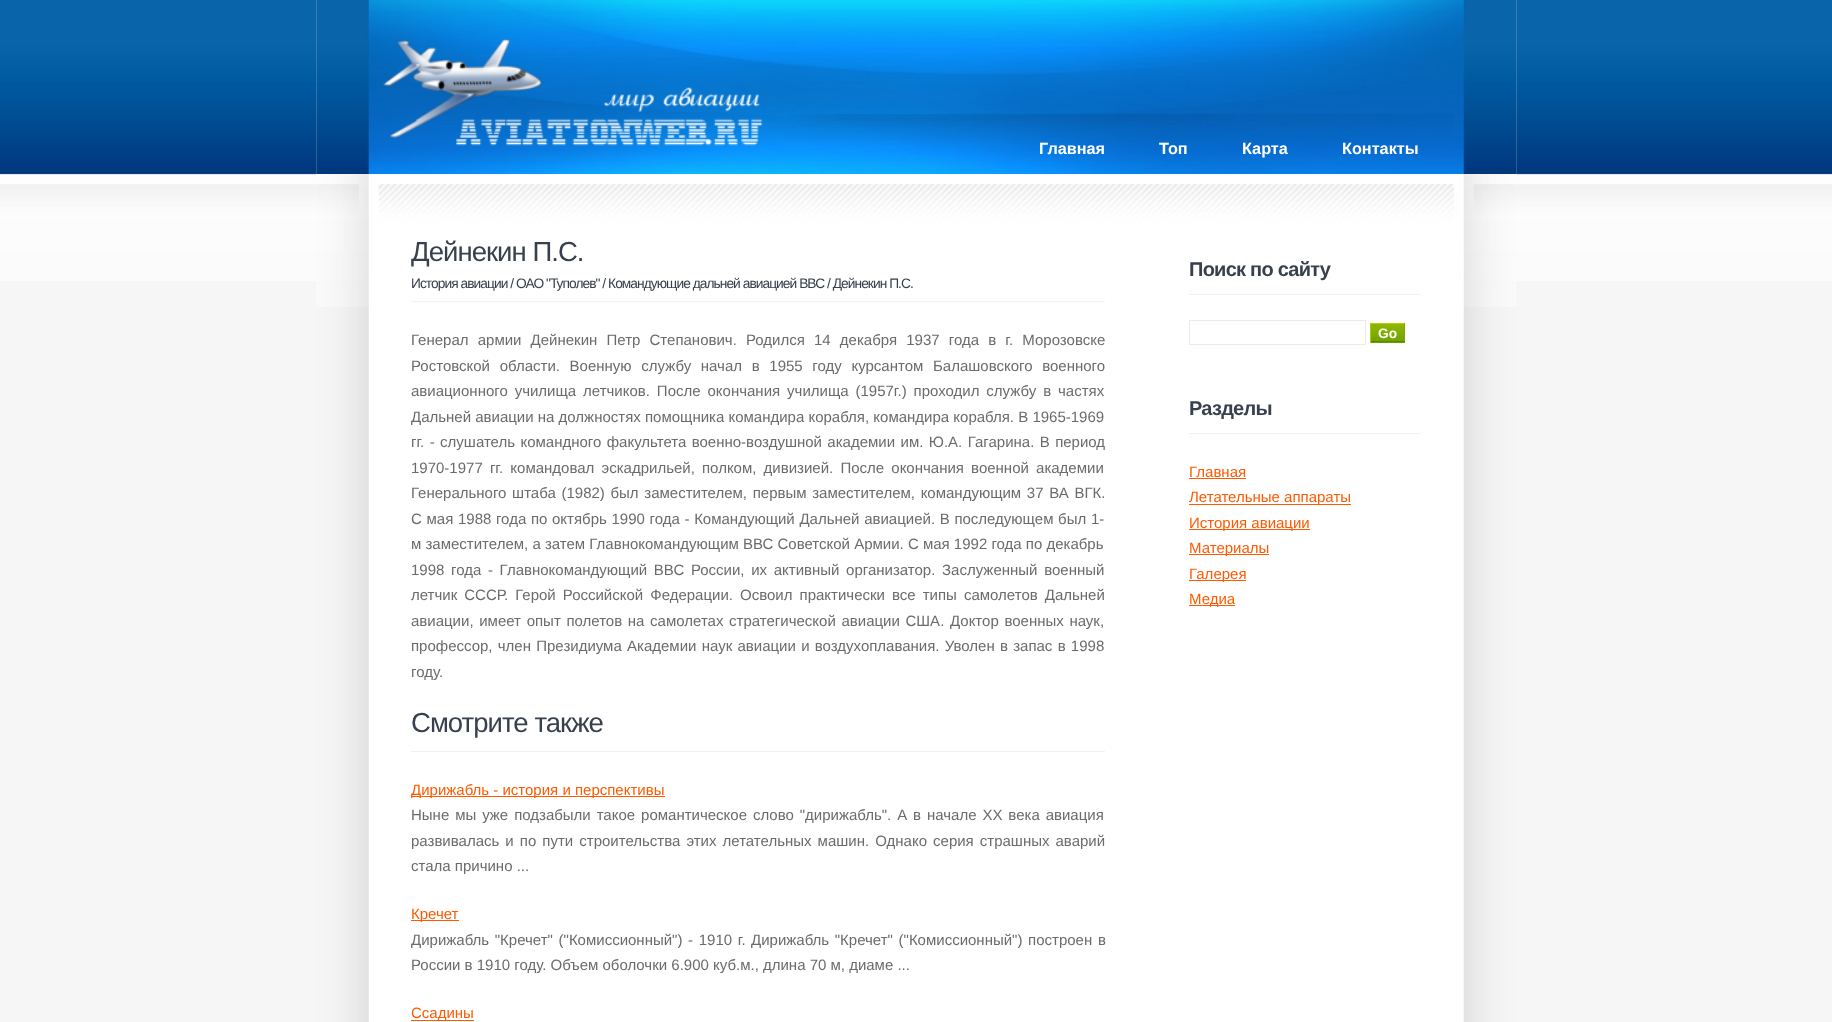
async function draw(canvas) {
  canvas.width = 1832
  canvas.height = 1022
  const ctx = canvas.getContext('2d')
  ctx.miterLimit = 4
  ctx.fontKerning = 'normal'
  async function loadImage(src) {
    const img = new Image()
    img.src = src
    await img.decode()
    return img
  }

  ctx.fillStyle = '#f6f6f6'
  ctx.fillRect(0, 0, 1832, 1022)
  ctx.drawImage(await loadImage('image0.png'), 0, 0, 1832, 281)
  ctx.drawImage(await loadImage('image1.png'), 316, 0, 1201, 1022)
  ctx.drawImage(await loadImage('image2.png'), 316, 0, 1201, 174)
  ctx.font = 'bold 16.25px Liberation Sans'
  ctx.fillStyle = '#fff'
  ctx.fillText('Главная', 1039, 154)
  ctx.fillText('Топ', 1159, 154)
  ctx.fillText('Карта', 1242, 154)
  ctx.fillText('Контакты', 1342, 154)
  ctx.drawImage(await loadImage('image3.png'), 316, 174, 1201, 133)
  ctx.fillStyle = '#f2f2f2'
  ctx.fillRect(411, 301, 694, 1)
  ctx.letterSpacing = '-0.95px'
  ctx.font = '27.5px Liberation Sans'
  ctx.fillStyle = '#37404c'
  ctx.fillText('Дейнекин П.С.', 411, 261)
  ctx.font = '13.75px Liberation Sans'
  ctx.fillText('История авиации / ОАО "Туполев" / Командующие дальней авиацией ВВС / Дейнекин П.С.', 411, 288)
  ctx.letterSpacing = '0px'
  ctx.wordSpacing = '5px'
  ctx.font = '15px Liberation Sans'
  ctx.fillStyle = '#6b6b6b'
  ctx.fillText('Генерал армии Дейнекин Петр Степанович. Родился 14 декабря 1937 года в г. Морозовске', 411, 345)
  ctx.wordSpacing = '5.5px'
  ctx.fillText('Ростовской области. Военную службу начал в 1955 году курсантом Балашовского военного', 411, 371)
  ctx.wordSpacing = '2.75px'
  ctx.fillText('авиационного училища летчиков. После окончания училища (1957г.) проходил службу в частях', 411, 396)
  ctx.wordSpacing = '0px'
  ctx.fillText('Дальней авиации на должностях помощника командира корабля, командира корабля. В 1965-1969', 411, 422)
  ctx.wordSpacing = '1.25px'
  ctx.fillText('гг. - слушатель командного факультета военно-воздушной академии им. Ю.А. Гагарина. В период', 411, 447)
  ctx.wordSpacing = '3px'
  ctx.fillText('1970-1977 гг. командовал эскадрильей, полком, дивизией. После окончания военной академии', 411, 473)
  ctx.wordSpacing = '1.5px'
  ctx.fillText('Генерального штаба (1982) был заместителем, первым заместителем, командующим 37 ВА ВГК.', 411, 498)
  ctx.wordSpacing = '0.5px'
  ctx.fillText('С мая 1988 года по октябрь 1990 года - Командующий Дальней авиацией. В последующем был 1-', 411, 524)
  ctx.wordSpacing = '0px'
  ctx.fillText('м заместителем, а затем Главнокомандующим ВВС Советской Армии. С мая 1992 года по декабрь', 411, 549)
  ctx.wordSpacing = '2.5px'
  ctx.fillText('1998 года - Главнокомандующий ВВС России, их активный организатор. Заслуженный военный', 411, 575)
  ctx.wordSpacing = '2.9px'
  ctx.fillText('летчик СССР. Герой Российской Федерации. Освоил практически все типы самолетов Дальней', 411, 600)
  ctx.wordSpacing = '1.5px'
  ctx.fillText('авиации, имеет опыт полетов на самолетах стратегической авиации США. Доктор военных наук,', 411, 626)
  ctx.wordSpacing = '1.1px'
  ctx.fillText('профессор, член Президиума Академии наук авиации и воздухоплавания. Уволен в запас в 1998', 411, 651)
  ctx.wordSpacing = '0px'
  ctx.fillText('году.', 411, 677)
  ctx.fillStyle = '#f2f2f2'
  ctx.fillRect(411, 751, 694, 1)
  ctx.letterSpacing = '-0.95px'
  ctx.font = '27.5px Liberation Sans'
  ctx.fillStyle = '#37404c'
  ctx.fillText('Смотрите также', 411, 732)
  ctx.fillStyle = '#ff5a00'
  ctx.fillRect(411, 796, 254, 1)
  ctx.letterSpacing = '0px'
  ctx.font = '15px Liberation Sans'
  ctx.fillText('Дирижабль - история и перспективы', 411, 795)
  ctx.wordSpacing = '1.75px'
  ctx.fillStyle = '#6b6b6b'
  ctx.fillText('Ныне мы уже подзабыли такое романтическое слово "дирижабль". А в начале ХХ века авиация', 411, 820)
  ctx.wordSpacing = '1.9px'
  ctx.fillText('развивалась и по пути строительства этих летательных машин. Однако серия страшных аварий', 411, 846)
  ctx.wordSpacing = '0px'
  ctx.fillText('стала причино ...', 411, 871)
  ctx.fillStyle = '#ff5a00'
  ctx.fillRect(411, 920, 48, 1)
  ctx.fillText('Кречет', 411, 919)
  ctx.wordSpacing = '1.5px'
  ctx.fillStyle = '#6b6b6b'
  ctx.fillText('Дирижабль "Кречет" ("Комиссионный") - 1910 г.', 411, 945)
  ctx.fillText('Дирижабль "Кречет" ("Комиссионный") построен в', 751, 945)
  ctx.wordSpacing = '0px'
  ctx.fillText('России в 1910 году. Объем оболочки 6.900 куб.м., длина 70 м, диаме ...', 411, 970)
  ctx.fillStyle = '#ff5a00'
  ctx.fillRect(411, 1020, 63, 1)
  ctx.fillText('Ссадины', 411, 1018)
  ctx.fillStyle = '#f2f2f2'
  ctx.fillRect(1189, 294, 232, 1)
  ctx.letterSpacing = '-0.75px'
  ctx.font = 'bold 20px Liberation Sans'
  ctx.fillStyle = '#37404c'
  ctx.fillText('Поиск по сайту', 1189, 276)
  ctx.strokeStyle = '#ebebeb'
  ctx.strokeRect(1189.5, 320.5, 176, 24)
  ctx.fillStyle = '#6e9d00'
  ctx.fillRect(1371, 342, 33, 1)
  ctx.drawImage(await loadImage('image4.png'), 1371, 324, 33, 17)
  ctx.fillStyle = '#bad300'
  ctx.fillRect(1370, 323, 35, 1)
  ctx.fillStyle = '#7dab00'
  ctx.fillRect(1404, 323, 1, 20)
  ctx.fillStyle = '#578900'
  ctx.fillRect(1370, 341, 35, 1)
  ctx.fillStyle = '#a9c817'
  ctx.fillRect(1370, 323, 1, 20)
  ctx.letterSpacing = '0px'
  ctx.font = 'bold 13.75px Liberation Sans'
  ctx.fillStyle = '#fff'
  ctx.fillText('Go', 1378, 338)
  ctx.fillStyle = '#f2f2f2'
  ctx.fillRect(1189, 433, 232, 1)
  ctx.letterSpacing = '-0.75px'
  ctx.font = 'bold 20px Liberation Sans'
  ctx.fillStyle = '#37404c'
  ctx.fillText('Разделы', 1189, 415)
  ctx.letterSpacing = '0px'
  ctx.font = '15px Liberation Sans'
  ctx.fillStyle = '#ff5a00'
  ctx.fillText('Главная', 1189, 477)
  ctx.fillRect(1189, 478, 57, 1)
  ctx.fillRect(1189, 504, 162, 1)
  ctx.fillText('Летательные аппараты', 1189, 502)
  ctx.fillRect(1189, 529, 121, 1)
  ctx.fillText('История авиации', 1189, 528)
  ctx.fillRect(1189, 554, 80, 1)
  ctx.fillText('Материалы', 1189, 553)
  ctx.fillRect(1189, 580, 57, 1)
  ctx.fillText('Галерея', 1189, 579)
  ctx.fillRect(1189, 605, 46, 1)
  ctx.fillText('Медиа', 1189, 604)
}

draw(document.querySelector('canvas'))
